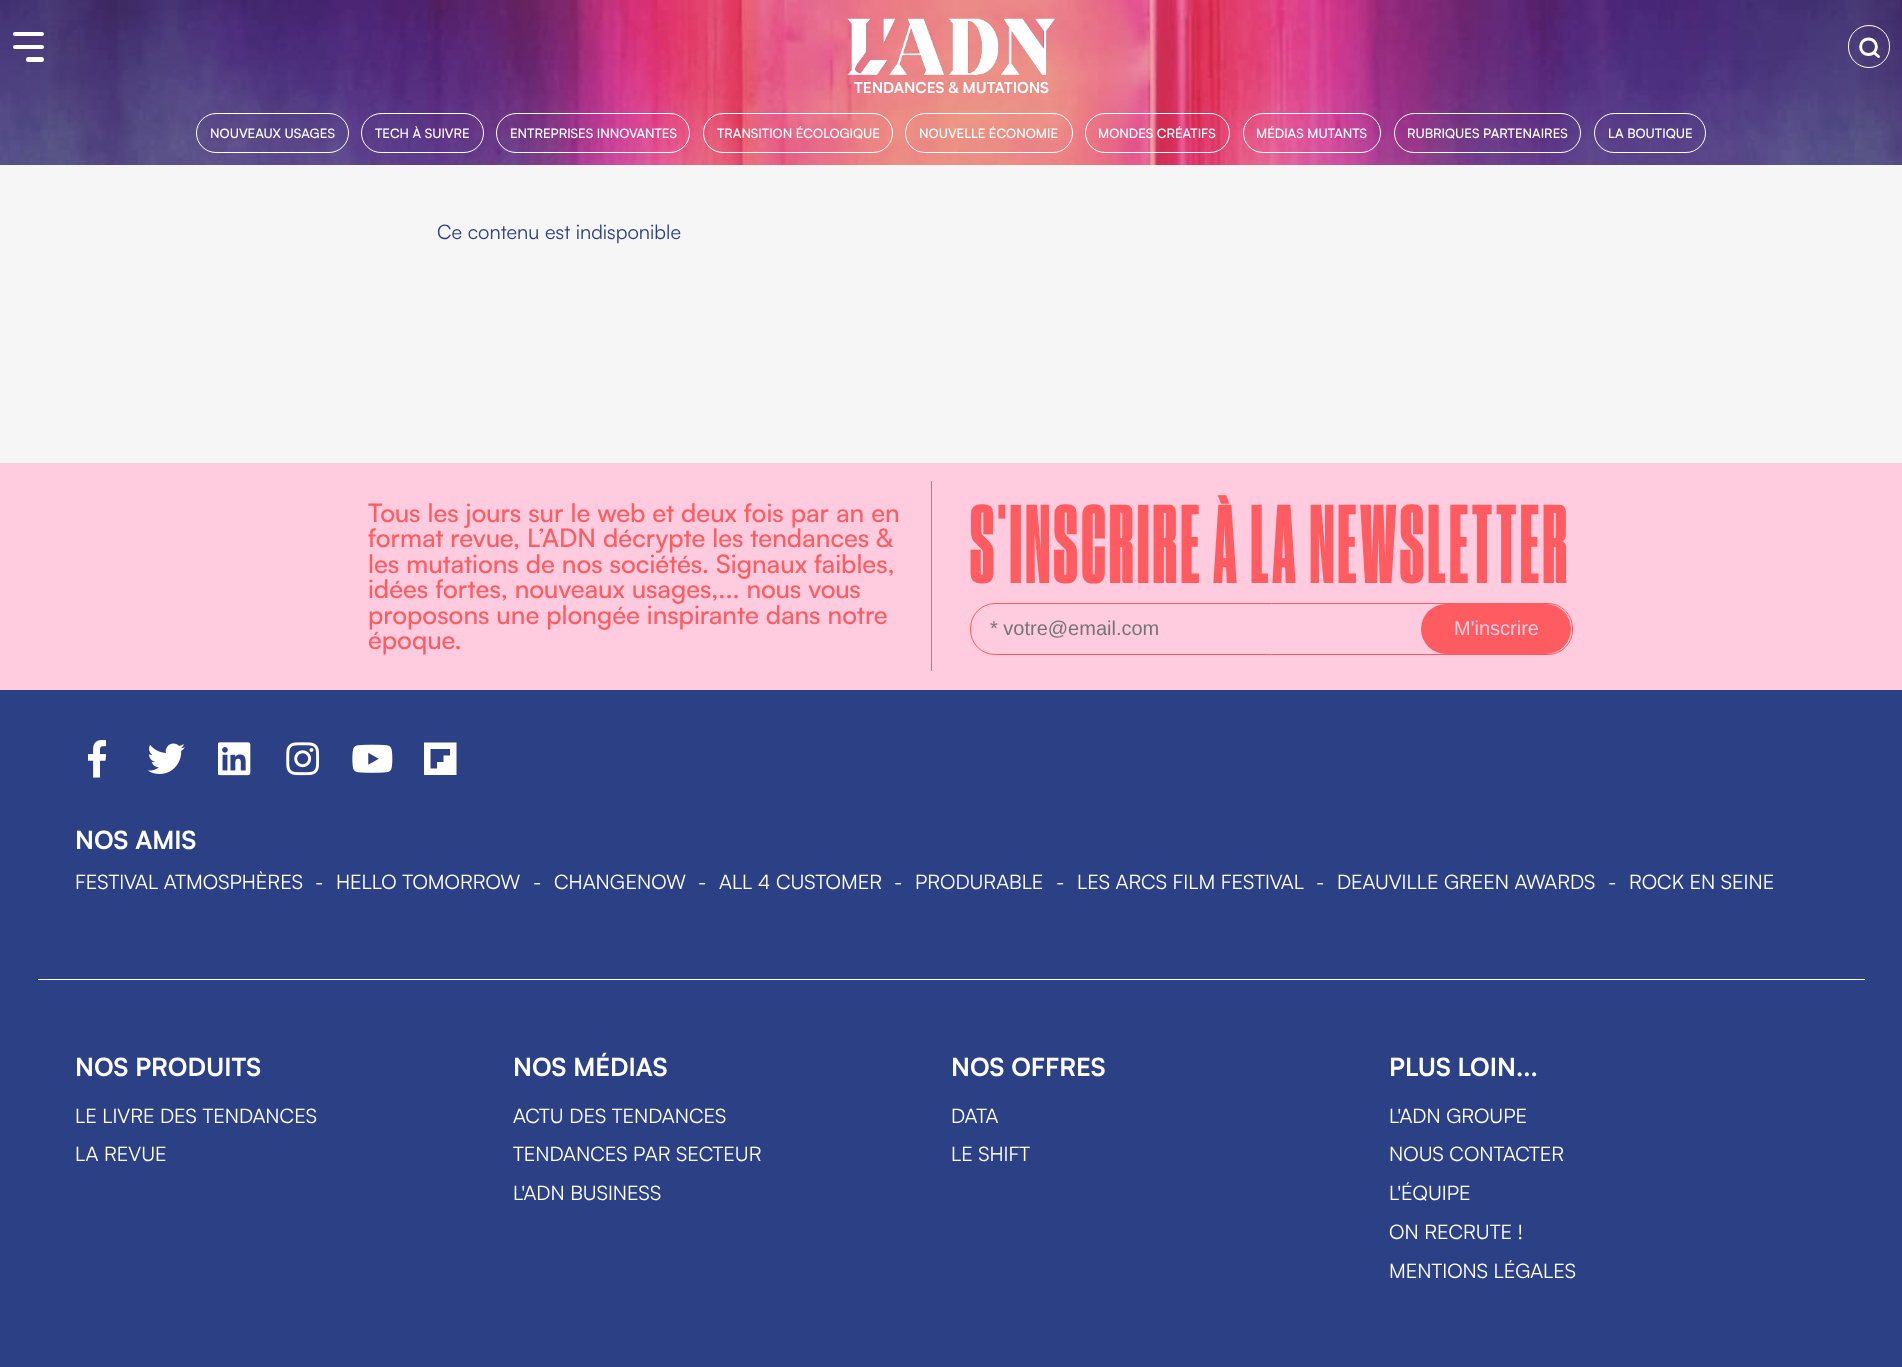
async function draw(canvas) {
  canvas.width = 1902
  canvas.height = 1367
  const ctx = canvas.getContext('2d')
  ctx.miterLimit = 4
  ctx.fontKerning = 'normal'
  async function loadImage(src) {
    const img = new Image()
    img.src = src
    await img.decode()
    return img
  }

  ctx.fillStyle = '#f6f6f6'
  ctx.fillRect(0, 0, 1902, 1367)
  ctx.drawImage(await loadImage('image0.png'), 0, 0, 1902, 165)
  ctx.fillStyle = '#fff'
  ctx.beginPath()
  ctx.roundRect(13, 32, 31, 4, 2)
  ctx.fill()
  ctx.beginPath()
  ctx.roundRect(13, 45, 31, 4, 2)
  ctx.fill()
  ctx.beginPath()
  ctx.roundRect(26, 57, 18, 5, 2.5)
  ctx.fill()
  ctx.beginPath()
  ctx.roundRect(1848.5, 25.5, 41, 42, 20.5)
  ctx.strokeStyle = '#fff'
  ctx.stroke()
  ctx.beginPath()
  ctx.moveTo(1868.5, 54.5)
  ctx.bezierCurveTo(1879, 54.5, 1879, 39, 1868.5, 39)
  ctx.bezierCurveTo(1858, 39, 1858, 54.5, 1868.5, 54.5)
  ctx.closePath()
  ctx.moveTo(1878.5, 56.5)
  ctx.lineTo(1874, 52.5)
  ctx.lineWidth = 2.9
  ctx.lineCap = 'round'
  ctx.lineJoin = 'round'
  ctx.stroke()
  ctx.drawImage(await loadImage('image1.png'), 847, 18, 208, 57)
  ctx.font = 'bold 15px Satoshi'
  ctx.fillText('TENDANCES & MUTATIONS', 854, 93)
  ctx.beginPath()
  ctx.roundRect(196.5, 113.5, 152, 39, 19.5)
  ctx.lineWidth = 1
  ctx.lineJoin = 'miter'
  ctx.stroke()
  ctx.font = '500 13px Satoshi'
  ctx.fillText('NOUVEAUX USAGES', 210, 138)
  ctx.beginPath()
  ctx.roundRect(361.5, 113.5, 122, 39, 19.5)
  ctx.stroke()
  ctx.fillText('TECH À SUIVRE', 375, 138)
  ctx.beginPath()
  ctx.roundRect(496.5, 113.5, 193, 39, 19.5)
  ctx.stroke()
  ctx.fillText('ENTREPRISES INNOVANTES', 510, 138)
  ctx.beginPath()
  ctx.roundRect(703.5, 113.5, 189, 39, 19.5)
  ctx.stroke()
  ctx.fillText('TRANSITION ÉCOLOGIQUE', 717, 138)
  ctx.beginPath()
  ctx.roundRect(905.5, 113.5, 167, 39, 19.5)
  ctx.stroke()
  ctx.fillText('NOUVELLE ÉCONOMIE', 919, 138)
  ctx.beginPath()
  ctx.roundRect(1085.5, 113.5, 144, 39, 19.5)
  ctx.stroke()
  ctx.fillText('MONDES CRÉATIFS', 1098, 138)
  ctx.beginPath()
  ctx.roundRect(1243.5, 113.5, 137, 39, 19.5)
  ctx.stroke()
  ctx.fillText('MÉDIAS MUTANTS', 1256, 138)
  ctx.beginPath()
  ctx.roundRect(1394.5, 113.5, 186, 39, 19.5)
  ctx.stroke()
  ctx.fillText('RUBRIQUES PARTENAIRES', 1407, 138)
  ctx.beginPath()
  ctx.roundRect(1594.5, 113.5, 111, 39, 19.5)
  ctx.stroke()
  ctx.fillText('LA BOUTIQUE', 1608, 138)
  ctx.font = '20px Satoshi'
  ctx.fillStyle = '#2c4085'
  ctx.fillText('Ce contenu est indisponible', 437, 239)
  ctx.fillStyle = '#ffcbde'
  ctx.fillRect(0, 463, 1902, 227)
  ctx.fillStyle = '#ff5c61'
  ctx.fillRect(931, 481, 1, 190)
  ctx.font = '500 25.5px Satoshi'
  ctx.fillText('Tous les jours sur le web et deux fois par an en', 368, 522)
  ctx.fillText('format revue, L’ADN décrypte les tendances &', 368, 547)
  ctx.fillText('les mutations de nos sociétés. Signaux faibles,', 368, 573)
  ctx.fillText('idées fortes, nouveaux usages,... nous vous', 368, 598)
  ctx.fillText('proposons une plongée inspirante dans notre', 368, 624)
  ctx.fillText('époque.', 368, 649)
  ctx.letterSpacing = '3.75px'
  ctx.font = '900 105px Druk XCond'
  ctx.fillText('S\'INSCRIRE À LA NEWSLETTER', 970, 583)
  ctx.beginPath()
  ctx.roundRect(970.5, 603.5, 602, 51, 24.5)
  ctx.strokeStyle = '#ff5c61'
  ctx.stroke()
  ctx.letterSpacing = '0px'
  ctx.font = '20px Liberation Sans'
  ctx.fillStyle = '#757575'
  ctx.fillText('* votre@email.com', 990, 635)
  ctx.fillStyle = '#ff5c61'
  ctx.beginPath()
  ctx.roundRect(1421, 604, 150, 50, 25)
  ctx.fill()
  ctx.fillStyle = '#ffcbde'
  ctx.fillText('M\'inscrire', 1454, 635)
  ctx.fillStyle = '#2c4085'
  ctx.fillRect(0, 690, 1902, 677)
  ctx.drawImage(await loadImage('image2.png'), 88, 740, 18, 38)
  ctx.drawImage(await loadImage('image3.png'), 148, 743, 37, 31)
  ctx.drawImage(await loadImage('image4.png'), 218, 742, 33, 34)
  ctx.drawImage(await loadImage('image5.png'), 286, 742, 34, 34)
  ctx.drawImage(await loadImage('image6.png'), 352, 744, 41, 29)
  ctx.fillStyle = '#fff'
  ctx.beginPath()
  ctx.moveTo(424, 742.5)
  ctx.lineTo(424, 775)
  ctx.lineTo(456.5, 775)
  ctx.lineTo(456.5, 742.5)
  ctx.closePath()
  ctx.moveTo(450, 755.5)
  ctx.lineTo(443.5, 755.5)
  ctx.lineTo(443.5, 762)
  ctx.lineTo(437, 762)
  ctx.lineTo(437, 768.5)
  ctx.lineTo(430.5, 768.5)
  ctx.lineTo(430.5, 749)
  ctx.lineTo(450, 749)
  ctx.closePath()
  ctx.fill()
  ctx.font = 'bold 25px Satoshi'
  ctx.fillText('NOS AMIS', 75, 849)
  ctx.font = '20px Satoshi'
  ctx.fillText('FESTIVAL ATMOSPHÈRES', 75, 889)
  ctx.fillText('-', 315, 889)
  ctx.fillText('HELLO TOMORROW', 336, 889)
  ctx.fillText('-', 533, 889)
  ctx.fillText('CHANGENOW', 554, 889)
  ctx.fillText('-', 698, 889)
  ctx.fillText('ALL 4 CUSTOMER', 719, 889)
  ctx.fillText('-', 894, 889)
  ctx.fillText('PRODURABLE', 915, 889)
  ctx.fillText('-', 1056, 889)
  ctx.fillText('LES ARCS FILM FESTIVAL', 1077, 889)
  ctx.fillText('-', 1316, 889)
  ctx.fillText('DEAUVILLE GREEN AWARDS', 1337, 889)
  ctx.fillText('-', 1608, 889)
  ctx.fillText('ROCK EN SEINE', 1629, 889)
  ctx.fillRect(38, 979, 1827, 1)
  ctx.font = 'bold 25px Satoshi'
  ctx.fillText('NOS PRODUITS', 75, 1076)
  ctx.font = '20px Satoshi'
  ctx.fillText('LE LIVRE DES TENDANCES', 75, 1123)
  ctx.fillText('LA REVUE', 75, 1161)
  ctx.font = 'bold 25px Satoshi'
  ctx.fillText('NOS MÉDIAS', 513, 1076)
  ctx.font = '20px Satoshi'
  ctx.fillText('ACTU DES TENDANCES', 513, 1123)
  ctx.fillText('TENDANCES PAR SECTEUR', 513, 1161)
  ctx.fillText('L\'ADN BUSINESS', 513, 1200)
  ctx.font = 'bold 25px Satoshi'
  ctx.fillText('NOS OFFRES', 951, 1076)
  ctx.font = '20px Satoshi'
  ctx.fillText('DATA', 951, 1123)
  ctx.fillText('LE SHIFT', 951, 1161)
  ctx.font = 'bold 25px Satoshi'
  ctx.fillText('PLUS LOIN...', 1389, 1076)
  ctx.font = '20px Satoshi'
  ctx.fillText('L\'ADN GROUPE', 1389, 1123)
  ctx.fillText('NOUS CONTACTER', 1389, 1161)
  ctx.fillText('L\'ÉQUIPE', 1389, 1200)
  ctx.fillText('ON RECRUTE !', 1389, 1239)
  ctx.fillText('MENTIONS LÉGALES', 1389, 1278)
}

draw(document.querySelector('canvas'))
